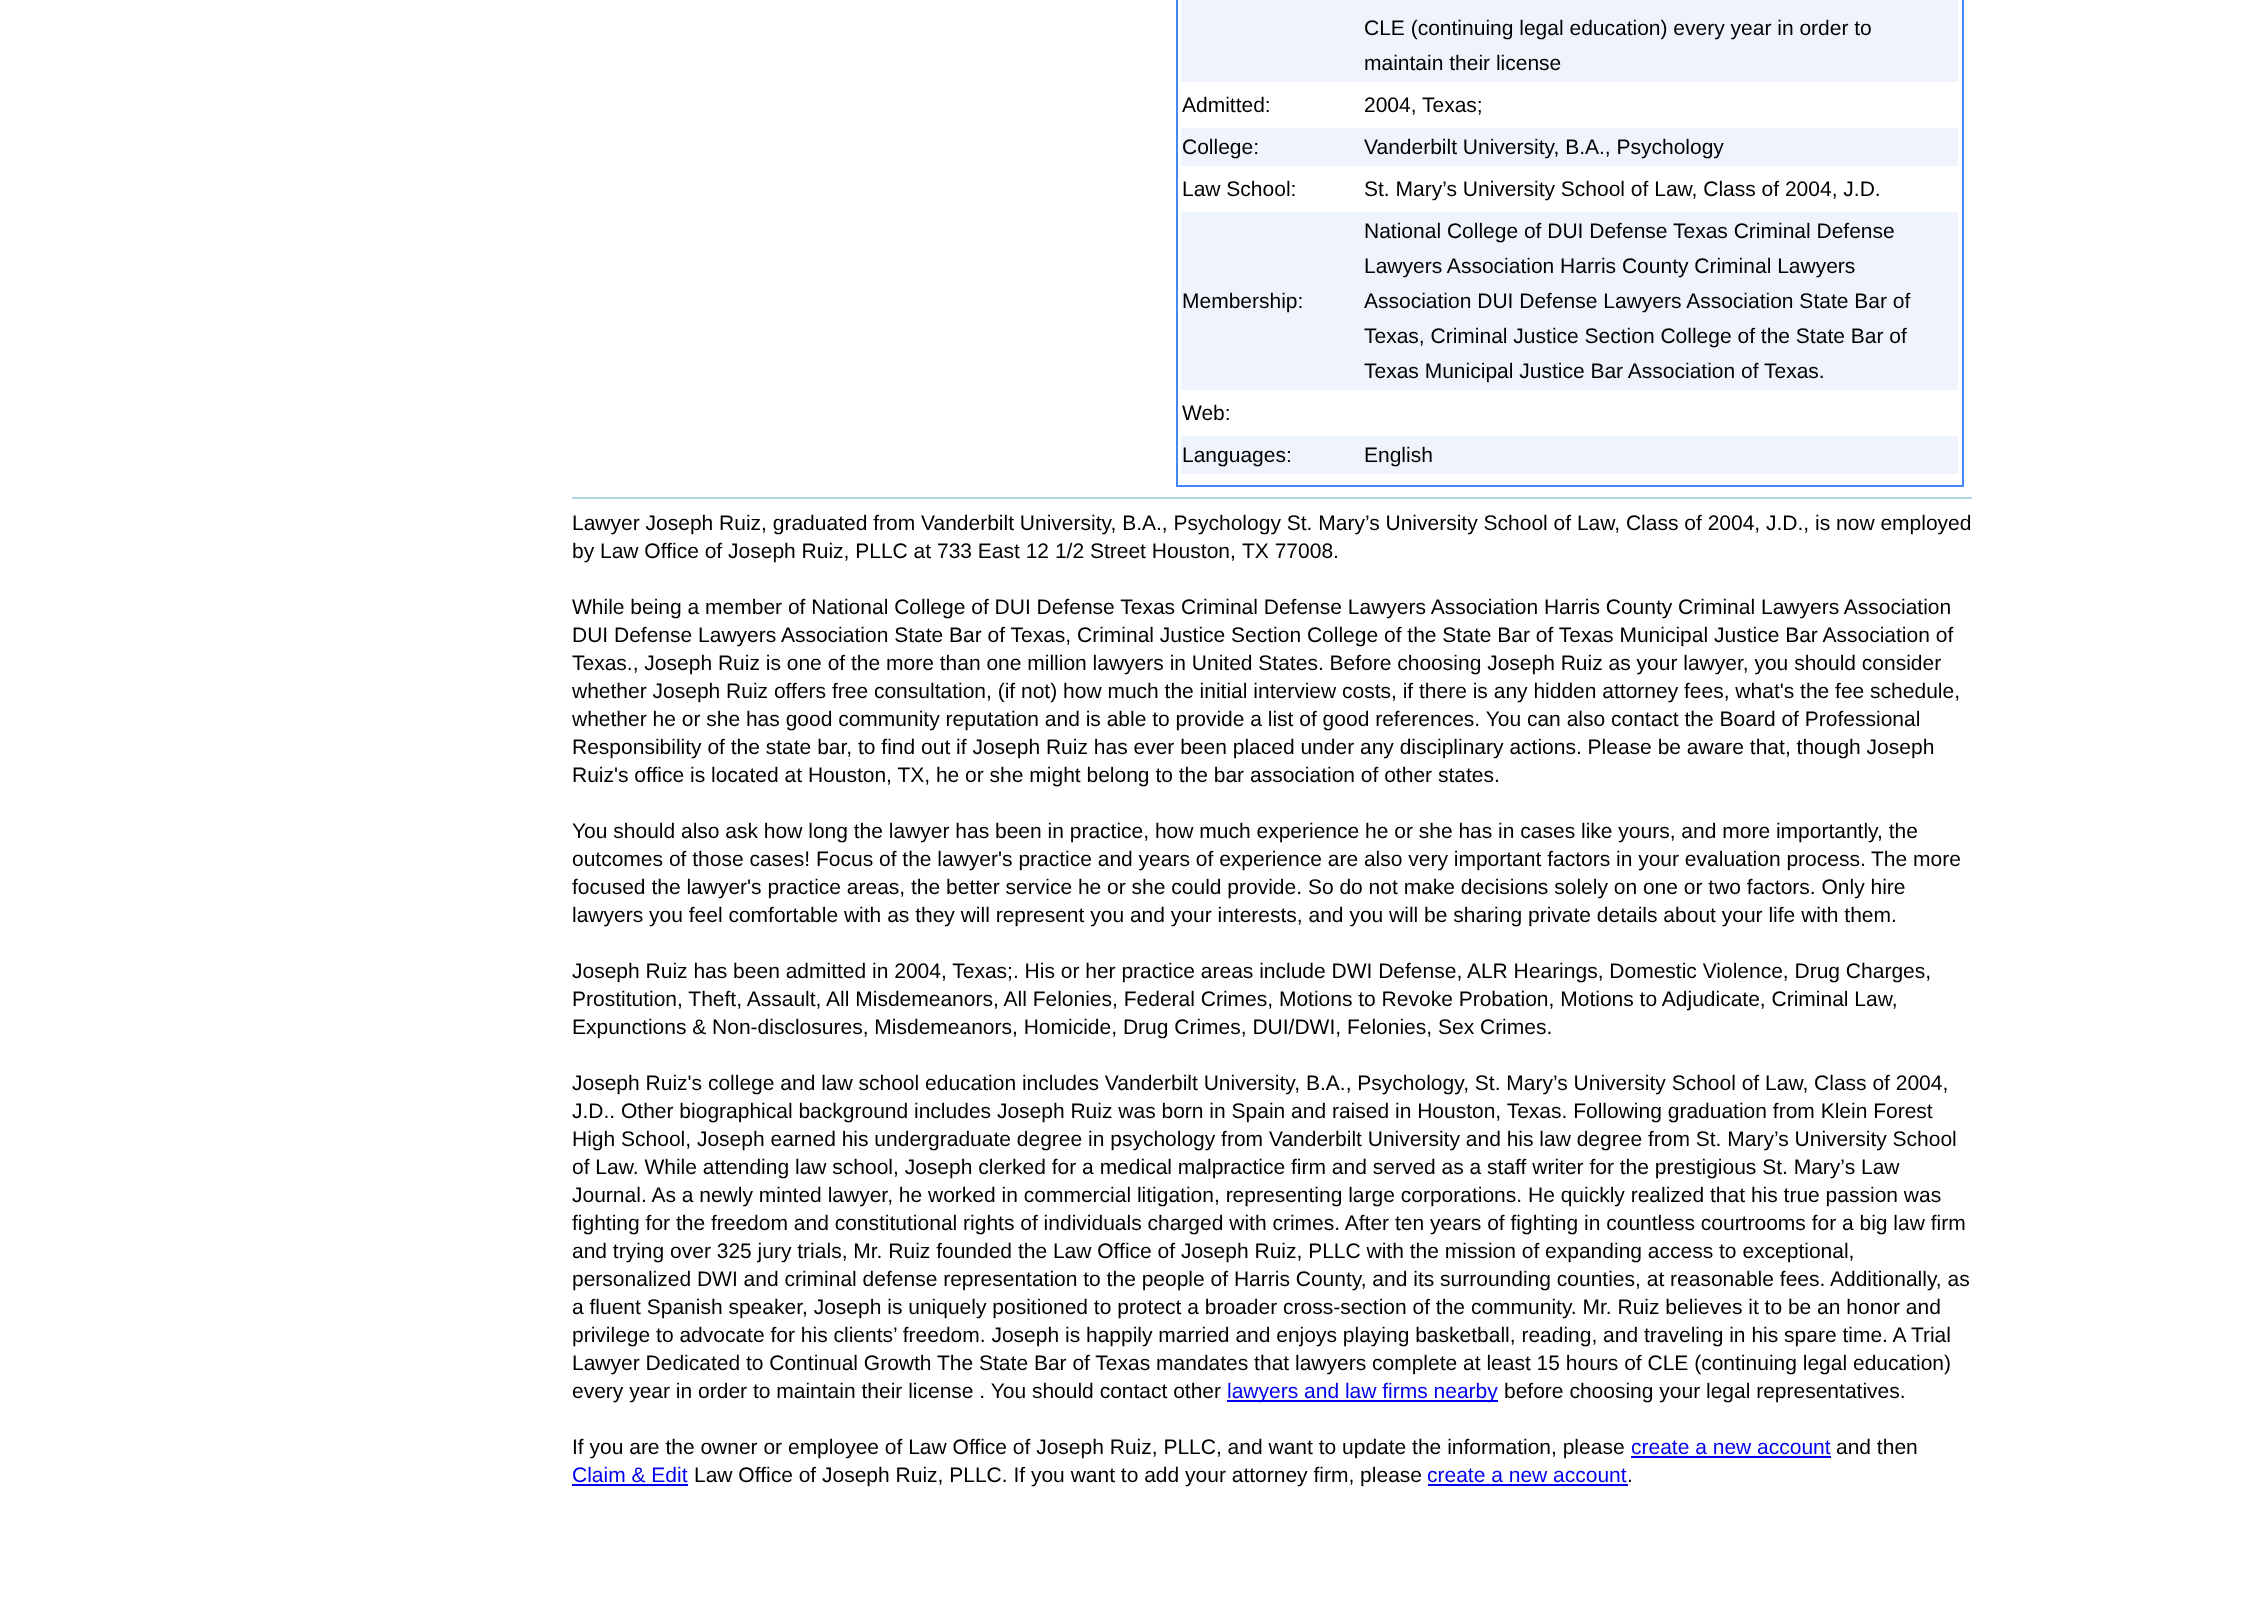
async function draw(canvas) {
  canvas.width = 2264
  canvas.height = 1623
  const ctx = canvas.getContext('2d')
  ctx.miterLimit = 4
  ctx.fontKerning = 'normal'

  ctx.fillStyle = '#fff'
  ctx.fillRect(0, 0, 2264, 1623)
  ctx.strokeStyle = '#48f'
  ctx.lineWidth = 2
  ctx.strokeRect(1177, -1, 786, 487)
  ctx.fillStyle = '#eff3fb'
  ctx.fillRect(1181, 0, 777, 82)
  ctx.font = '21px Liberation Sans'
  ctx.fillStyle = '#000'
  ctx.fillText('CLE (continuing legal education) every year in order to', 1364, 35)
  ctx.fillText('maintain their license', 1364, 70)
  ctx.fillText('Admitted:', 1182, 112)
  ctx.fillText('2004, Texas;', 1364, 112)
  ctx.fillStyle = '#eff3fb'
  ctx.fillRect(1181, 128, 777, 38)
  ctx.fillStyle = '#000'
  ctx.fillText('College:', 1182, 154)
  ctx.fillText('Vanderbilt University, B.A., Psychology', 1364, 154)
  ctx.fillText('Law School:', 1182, 196)
  ctx.fillText('St. Mary’s University School of Law, Class of 2004, J.D.', 1364, 196)
  ctx.fillStyle = '#eff3fb'
  ctx.fillRect(1181, 212, 777, 178)
  ctx.fillStyle = '#000'
  ctx.fillText('Membership:', 1182, 308)
  ctx.fillText('National College of DUI Defense Texas Criminal Defense', 1364, 238)
  ctx.fillText('Lawyers Association Harris County Criminal Lawyers', 1364, 273)
  ctx.fillText('Association DUI Defense Lawyers Association State Bar of', 1364, 308)
  ctx.fillText('Texas, Criminal Justice Section College of the State Bar of', 1364, 343)
  ctx.fillText('Texas Municipal Justice Bar Association of Texas.', 1364, 378)
  ctx.fillText('Web:', 1182, 420)
  ctx.fillStyle = '#eff3fb'
  ctx.fillRect(1181, 436, 777, 38)
  ctx.fillStyle = '#000'
  ctx.fillText('Languages:', 1182, 462)
  ctx.fillText('English', 1364, 462)
  ctx.fillStyle = '#add8e6'
  ctx.fillRect(572, 497, 1400, 2)
  ctx.fillStyle = '#000'
  ctx.fillText('Lawyer Joseph Ruiz, graduated from Vanderbilt University, B.A., Psychology St. Mary’s University School of Law, Class of 2004, J.D., is now employed', 572, 530)
  ctx.fillText('by Law Office of Joseph Ruiz, PLLC at 733 East 12 1/2 Street Houston,', 572, 558)
  ctx.fillText('TX 77008.', 1242, 558)
  ctx.fillText('While being a member of National College of DUI Defense Texas Criminal Defense Lawyers Association Harris County Criminal Lawyers Association', 572, 614)
  ctx.fillText('DUI Defense Lawyers Association State Bar of Texas, Criminal Justice Section College of the State Bar of Texas Municipal Justice Bar Association of', 572, 642)
  ctx.fillText('Texas., Joseph Ruiz is one of the more than one million lawyers in United States. Before choosing Joseph Ruiz as your lawyer, you should consider', 572, 670)
  ctx.fillText('whether Joseph Ruiz offers free consultation, (if not) how much the initial interview costs, if there is any hidden attorney fees, what\'s the fee schedule,', 572, 698)
  ctx.fillText('whether he or she has good community reputation and is able to provide a list of good references. You can also contact the Board of Professional', 572, 726)
  ctx.fillText('Responsibility of the state bar, to find out if Joseph Ruiz has ever been placed under any disciplinary actions. Please be aware that, though Joseph', 572, 754)
  ctx.fillText('Ruiz\'s office is located at Houston, TX, he or she might belong to the bar association of other states.', 572, 782)
  ctx.fillText('You should also ask how long the lawyer has been in practice, how much experience he or she has in cases like yours, and more importantly, the', 572, 838)
  ctx.fillText('outcomes of those cases! Focus of the lawyer\'s practice and years of experience are also very important factors in your evaluation process.', 572, 866)
  ctx.fillText('The more', 1871, 866)
  ctx.fillText('focused the lawyer\'s practice areas, the better service he or she could provide. So do not make decisions solely on one or two factors. Only hire', 572, 894)
  ctx.fillText('lawyers you feel comfortable with as they will represent you and your interests, and you will be sharing private details about your life with them.', 572, 922)
  ctx.fillText('Joseph Ruiz has been admitted in 2004, Texas;. His or her practice areas include DWI Defense, ALR Hearings, Domestic Violence, Drug Charges,', 572, 978)
  ctx.fillText('Prostitution, Theft, Assault, All Misdemeanors, All Felonies, Federal Crimes, Motions to Revoke Probation, Motions to Adjudicate, Criminal Law,', 572, 1006)
  ctx.fillText('Expunctions & Non-disclosures, Misdemeanors, Homicide, Drug Crimes, DUI/DWI, Felonies, Sex Crimes.', 572, 1034)
  ctx.fillText('Joseph Ruiz\'s college and law school education includes Vanderbilt University, B.A., Psychology, St. Mary’s University School of Law, Class of 2004,', 572, 1090)
  ctx.fillText('J.D.. Other biographical background includes Joseph Ruiz was born in Spain and raised in Houston, Texas. Following graduation from Klein Forest', 572, 1118)
  ctx.fillText('High School, Joseph earned his undergraduate degree in psychology from Vanderbilt University and his law degree from St. Mary’s University School', 572, 1146)
  ctx.fillText('of Law. While attending law school, Joseph clerked for a medical malpractice firm and served as a staff writer for the prestigious St. Mary’s Law', 572, 1174)
  ctx.fillText('Journal. As a newly minted lawyer, he worked in commercial litigation, representing large corporations. He quickly realized that his true passion was', 572, 1202)
  ctx.fillText('fighting for the freedom and constitutional rights of individuals charged with crimes. After ten years of fighting in countless courtrooms for a big law firm', 572, 1230)
  ctx.fillText('and trying over 325 jury trials, Mr. Ruiz founded the Law Office of Joseph Ruiz, PLLC with the mission of expanding access to exceptional,', 572, 1258)
  ctx.fillText('personalized DWI and criminal defense representation to the people of Harris County, and its surrounding counties, at reasonable fees. Additionally, as', 572, 1286)
  ctx.fillText('a fluent Spanish speaker, Joseph is uniquely positioned to protect a broader cross-section of the community. Mr. Ruiz believes it to be an honor and', 572, 1314)
  ctx.fillText('privilege to advocate for his clients’ freedom. Joseph is happily married and enjoys playing basketball, reading, and traveling in his spare time. A Trial', 572, 1342)
  ctx.fillText('Lawyer Dedicated to Continual Growth', 572, 1370)
  ctx.fillText('The State Bar of Texas mandates that lawyers complete at least 15 hours of CLE (continuing legal education)', 937, 1370)
  ctx.fillText('every year in order to maintain their license . You should contact other', 572, 1398)
  ctx.fillStyle = '#00e'
  ctx.fillRect(1227, 1400, 271, 2)
  ctx.fillText('lawyers and law firms nearby', 1227, 1398)
  ctx.fillStyle = '#000'
  ctx.fillText('before choosing your legal representatives.', 1504, 1398)
  ctx.fillText('If you are the owner or employee of Law Office of Joseph Ruiz, PLLC, and want to update the information, please', 572, 1454)
  ctx.fillStyle = '#00e'
  ctx.fillText('create a new account', 1631, 1454)
  ctx.fillRect(1631, 1456, 200, 2)
  ctx.fillStyle = '#000'
  ctx.fillText('and then', 1836, 1454)
  ctx.fillStyle = '#00e'
  ctx.fillText('Claim & Edit', 572, 1482)
  ctx.fillRect(572, 1484, 116, 2)
  ctx.fillStyle = '#000'
  ctx.fillText('Law Office of Joseph Ruiz, PLLC. If you want to add your attorney firm, please', 694, 1482)
  ctx.fillStyle = '#00e'
  ctx.fillText('create a new account', 1427, 1482)
  ctx.fillRect(1428, 1484, 200, 2)
  ctx.fillStyle = '#000'
  ctx.fillText('.', 1627, 1482)
}

draw(document.querySelector('canvas'))
